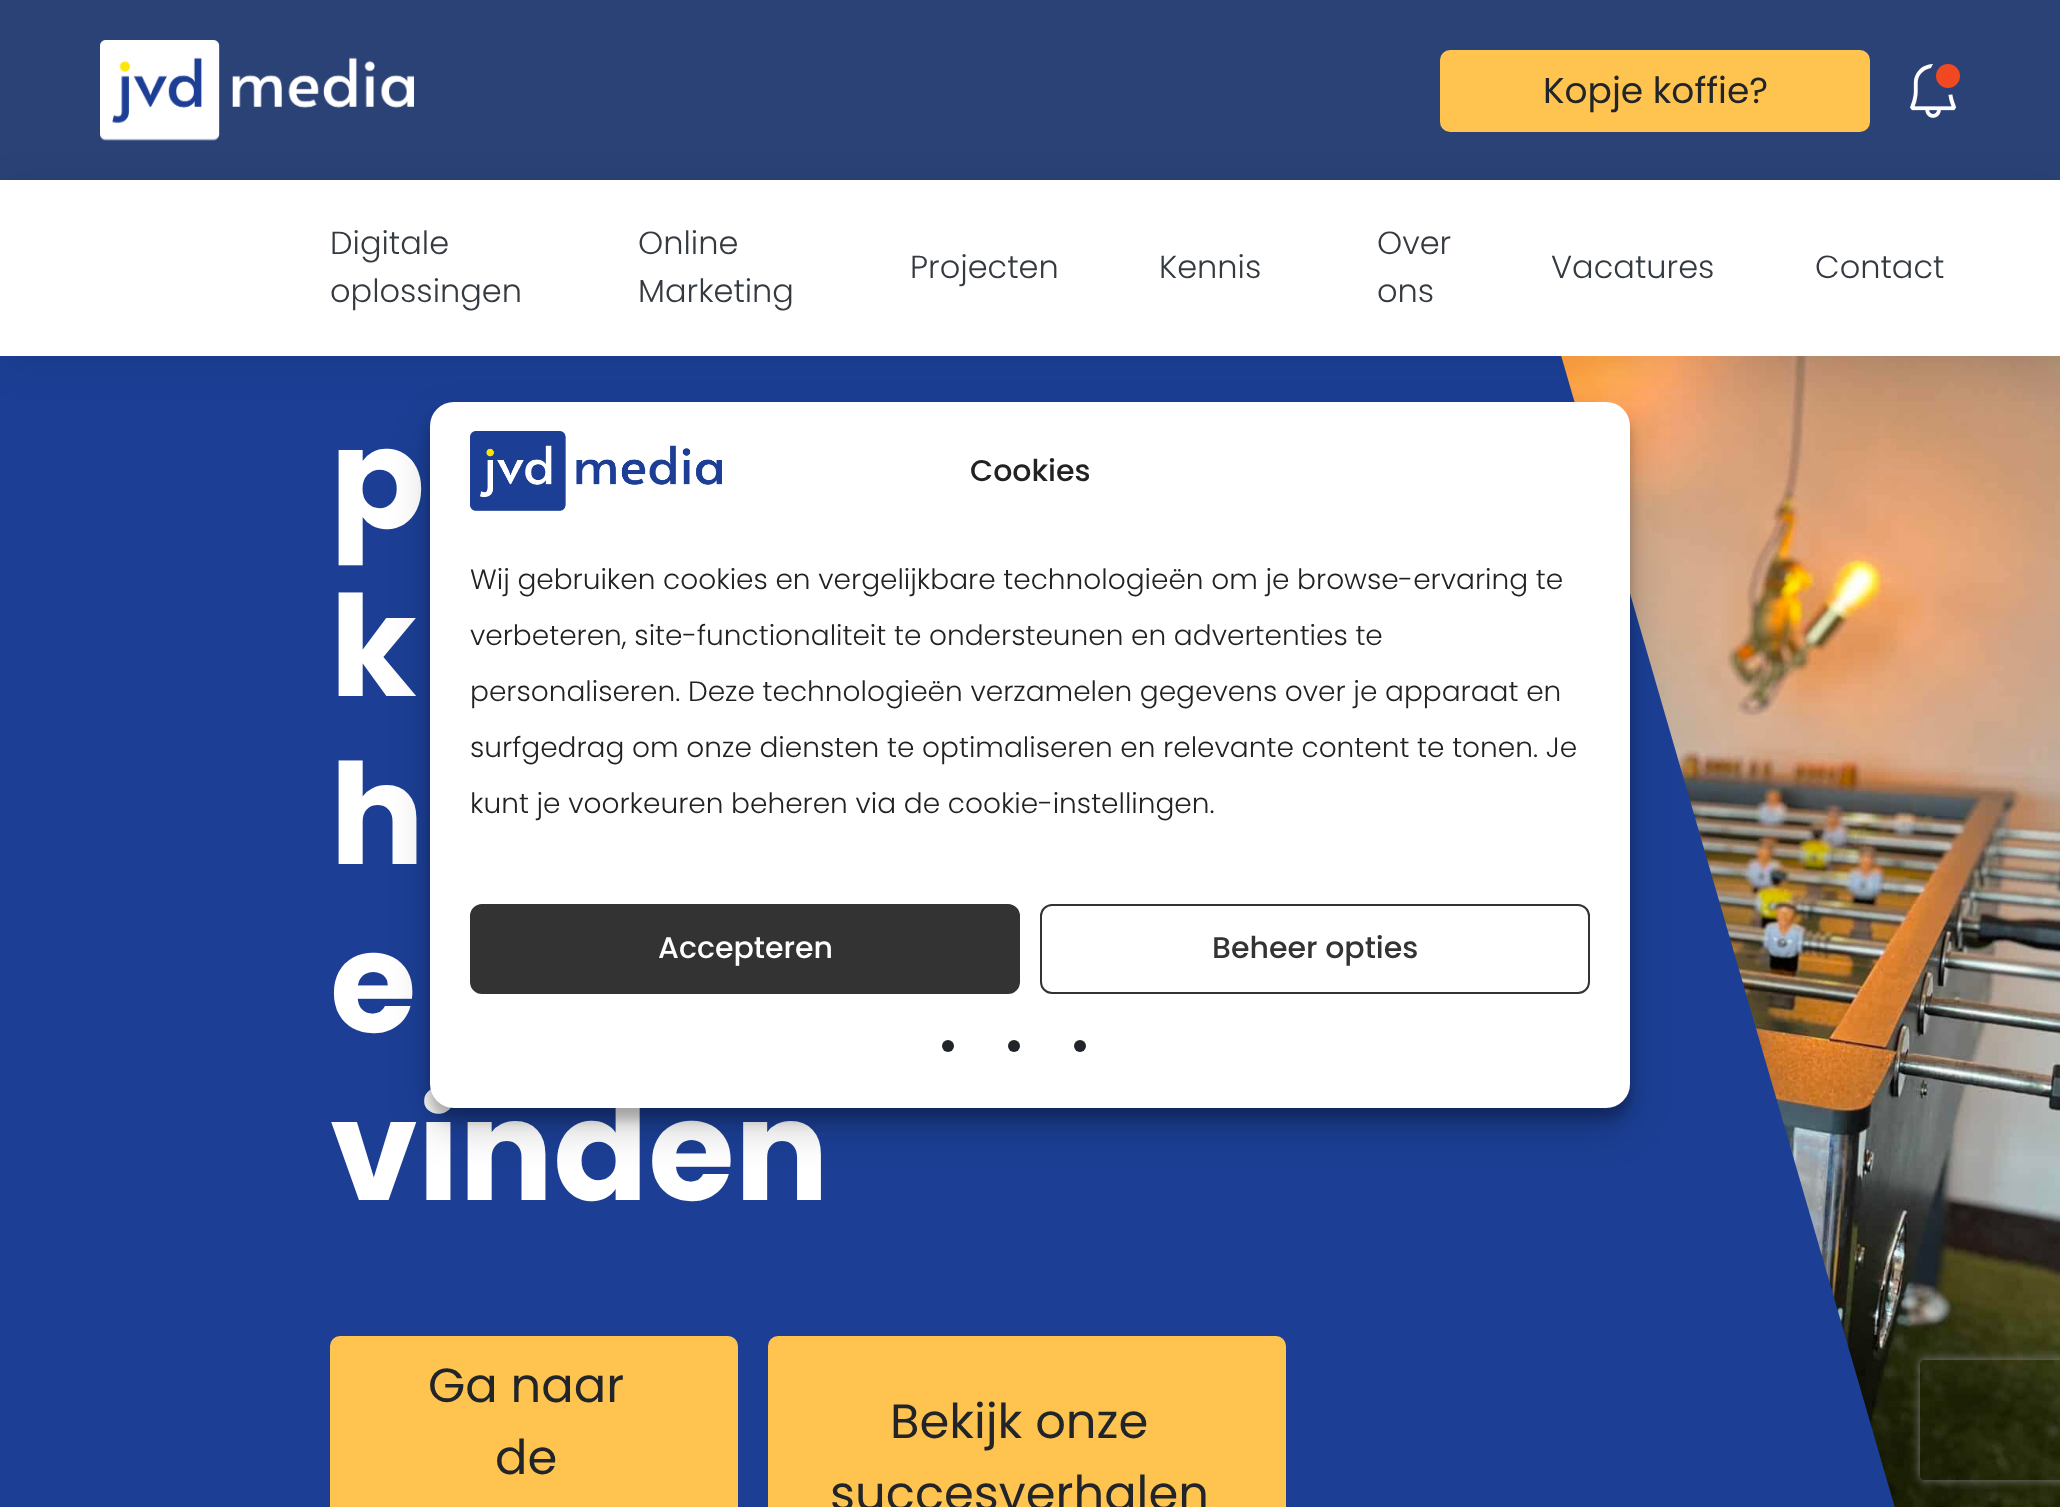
async function draw(canvas) {
  canvas.width = 2060
  canvas.height = 1507
  const ctx = canvas.getContext('2d')
  ctx.miterLimit = 4
  ctx.fontKerning = 'normal'
  async function loadImage(src) {
    const img = new Image()
    img.src = src
    await img.decode()
    return img
  }

  ctx.fillStyle = '#fff'
  ctx.fillRect(0, 0, 2060, 1507)
  ctx.fillStyle = '#2b4276'
  ctx.fillRect(0, 0, 2060, 180)
  ctx.drawImage(await loadImage('image0.png'), 100, 40, 314, 101)
  ctx.fillStyle = '#ffc350'
  ctx.beginPath()
  ctx.roundRect(1441, 51, 428, 80, 9)
  ctx.fill()
  ctx.strokeStyle = '#ffc350'
  ctx.lineWidth = 2
  ctx.stroke()
  ctx.font = '36px Poppins'
  ctx.fillStyle = '#212529'
  ctx.fillText('Kopje koffie?', 1543, 103)
  ctx.drawImage(await loadImage('image1.png'), 1910, 64, 50, 54)
  ctx.drawImage(await loadImage('image2.png'), 1561, 356, 499, 1151)
  ctx.fillStyle = '#1c3f95'
  ctx.beginPath()
  ctx.moveTo(0, 300)
  ctx.lineTo(0, 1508)
  ctx.lineTo(1895, 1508)
  ctx.lineTo(1545, 300)
  ctx.closePath()
  ctx.fill()
  ctx.fillStyle = '#00000014'
  ctx.filter = 'blur(20px)'
  ctx.beginPath()
  ctx.rect(0, 188, 2060, 176)
  ctx.fill()
  ctx.filter = 'none'
  ctx.fillStyle = '#fff'
  ctx.fillRect(0, 180, 2060, 176)
  ctx.font = '300 32px Poppins'
  ctx.fillStyle = '#343a40'
  ctx.fillText('Digitale', 330, 254)
  ctx.fillText('oplossingen', 330, 302)
  ctx.fillText('Online', 638, 254)
  ctx.fillText('Marketing', 638, 302)
  ctx.fillText('Projecten', 910, 278)
  ctx.fillText('Kennis', 1159, 278)
  ctx.fillText('Over', 1377, 254)
  ctx.fillText('ons', 1377, 302)
  ctx.fillText('Vacatures', 1551, 278)
  ctx.fillText('Contact', 1815, 278)
  ctx.font = 'bold 140px Poppins'
  ctx.fillStyle = '#fff'
  ctx.fillText('p', 330, 528)
  ctx.fillText('k', 330, 696)
  ctx.fillText('h', 330, 864)
  ctx.fillText('e', 330, 1032)
  ctx.fillText('vinden', 330, 1200)
  ctx.fillStyle = '#ffc350'
  ctx.beginPath()
  ctx.roundRect(331, 1337, 406, 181, 9)
  ctx.fill()
  ctx.stroke()
  ctx.font = '48px Poppins'
  ctx.fillStyle = '#212529'
  ctx.fillText('Ga naar', 428, 1402)
  ctx.fillText('de', 495, 1474)
  ctx.fillStyle = '#ffc350'
  ctx.beginPath()
  ctx.roundRect(769, 1337, 516, 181, 9)
  ctx.fill()
  ctx.stroke()
  ctx.fillStyle = '#212529'
  ctx.fillText('Bekijk onze', 890, 1438)
  ctx.fillText('succesverhalen', 830, 1510)
  ctx.fillStyle = '#0000003b'
  ctx.filter = 'blur(6px)'
  ctx.beginPath()
  ctx.roundRect(430, 414, 1200, 706, 24)
  ctx.fill()
  ctx.filter = 'none'
  ctx.fillStyle = '#00000030'
  ctx.filter = 'blur(20px)'
  ctx.beginPath()
  ctx.roundRect(430, 422, 1200, 706, 24)
  ctx.fill()
  ctx.filter = 'none'
  ctx.fillStyle = '#fff'
  ctx.beginPath()
  ctx.roundRect(430, 402, 1200, 706, 24)
  ctx.fill()
  ctx.drawImage(await loadImage('image3.png'), 470, 431, 252, 80)
  ctx.font = '500 30px Poppins'
  ctx.fillStyle = '#222'
  ctx.fillText('Cookies', 970, 481)
  ctx.font = '300 28px Poppins'
  ctx.fillText('Wij gebruiken cookies en vergelijkbare technologieën om je browse-ervaring te', 470, 589)
  ctx.fillText('verbeteren, site-functionaliteit te ondersteunen en advertenties te', 470, 645)
  ctx.fillText('personaliseren. Deze technologieën verzamelen gegevens over je apparaat en', 470, 701)
  ctx.fillText('surfgedrag om onze diensten te optimaliseren en relevante content te tonen. Je', 470, 757)
  ctx.fillText('kunt je voorkeuren beheren via de cookie-instellingen.', 470, 813)
  ctx.fillStyle = '#333'
  ctx.beginPath()
  ctx.roundRect(471, 905, 548, 88, 11)
  ctx.fill()
  ctx.strokeStyle = '#333'
  ctx.stroke()
  ctx.font = '500 30px Poppins'
  ctx.fillStyle = '#fff'
  ctx.fillText('Accepteren', 658, 958)
  ctx.beginPath()
  ctx.roundRect(1041, 905, 548, 88, 11)
  ctx.stroke()
  ctx.fillStyle = '#333'
  ctx.fillText('Beheer opties', 1212, 958)
  ctx.fillStyle = '#212529'
  ctx.beginPath()
  ctx.arc(948, 1046, 6, 0, 2 * Math.PI)
  ctx.fill()
  ctx.beginPath()
  ctx.arc(1014, 1046, 6, 0, 2 * Math.PI)
  ctx.fill()
  ctx.beginPath()
  ctx.arc(1080, 1046, 6, 0, 2 * Math.PI)
  ctx.fill()
  ctx.save()
  ctx.beginPath()
  ctx.moveTo(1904, 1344)
  ctx.lineTo(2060, 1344)
  ctx.lineTo(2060, 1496)
  ctx.lineTo(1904, 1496)
  ctx.closePath()
  ctx.moveTo(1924, 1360)
  ctx.lineTo(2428, 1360)
  ctx.bezierCurveTo(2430, 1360, 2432, 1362, 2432, 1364)
  ctx.lineTo(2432, 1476)
  ctx.bezierCurveTo(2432, 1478, 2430, 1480, 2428, 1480)
  ctx.lineTo(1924, 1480)
  ctx.bezierCurveTo(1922, 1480, 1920, 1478, 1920, 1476)
  ctx.lineTo(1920, 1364)
  ctx.bezierCurveTo(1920, 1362, 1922, 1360, 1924, 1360)
  ctx.closePath()
  ctx.clip('evenodd')
  ctx.fillStyle = '#808080'
  ctx.filter = 'blur(5px)'
  ctx.beginPath()
  ctx.roundRect(1920, 1360, 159, 120, 4)
  ctx.fill()
  ctx.filter = 'none'
  ctx.restore()
}

draw(document.querySelector('canvas'))
